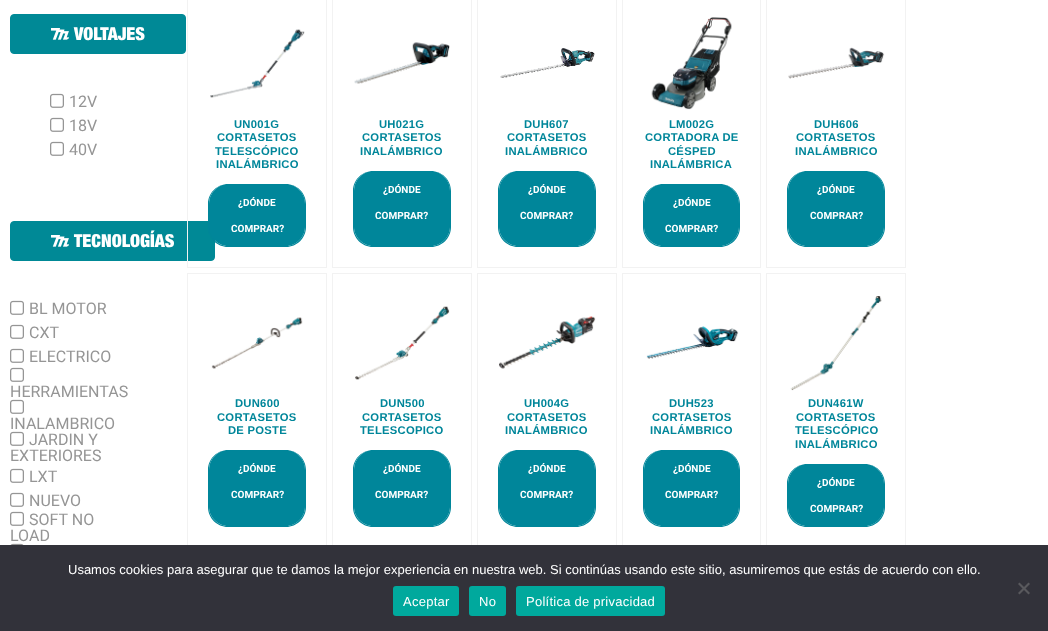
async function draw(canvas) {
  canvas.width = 1048
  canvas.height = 631
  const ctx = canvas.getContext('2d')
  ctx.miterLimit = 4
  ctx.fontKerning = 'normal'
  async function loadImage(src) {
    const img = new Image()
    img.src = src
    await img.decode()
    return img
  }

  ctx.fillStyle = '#fff'
  ctx.fillRect(0, 0, 1048, 631)
  ctx.fillStyle = '#008996'
  ctx.beginPath()
  ctx.roundRect(10.5, 14.5, 175, 39, 3.5)
  ctx.fill()
  ctx.strokeStyle = '#008996'
  ctx.stroke()
  ctx.drawImage(await loadImage('image0.png'), 51, 28, 18, 12)
  ctx.font = '900 18px "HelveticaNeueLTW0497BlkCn"'
  ctx.fillStyle = '#fff'
  ctx.fillText('VOLTAJES', 74, 40)
  ctx.drawImage(await loadImage('image1.png'), 50, 93, 14, 15)
  ctx.font = '16px Roboto'
  ctx.fillStyle = '#959595'
  ctx.fillText('12V', 69, 107)
  ctx.drawImage(await loadImage('image1.png'), 50, 117, 14, 15)
  ctx.fillText('18V', 69, 131)
  ctx.drawImage(await loadImage('image1.png'), 50, 141, 14, 15)
  ctx.fillText('40V', 69, 155)
  ctx.fillStyle = '#008996'
  ctx.beginPath()
  ctx.roundRect(10.5, 221.5, 204, 39, 3.5)
  ctx.fill()
  ctx.stroke()
  ctx.drawImage(await loadImage('image0.png'), 51, 235, 18, 12)
  ctx.font = '900 18px "HelveticaNeueLTW0497BlkCn"'
  ctx.fillStyle = '#fff'
  ctx.fillText('TECNOLOGÍAS', 74, 247)
  ctx.drawImage(await loadImage('image1.png'), 10, 300, 14, 15)
  ctx.font = '16px Roboto'
  ctx.fillStyle = '#959595'
  ctx.fillText('BL MOTOR', 29, 314)
  ctx.drawImage(await loadImage('image1.png'), 10, 324, 14, 15)
  ctx.fillText('CXT', 29, 338)
  ctx.drawImage(await loadImage('image1.png'), 10, 348, 14, 15)
  ctx.fillText('ELECTRICO', 29, 362)
  ctx.drawImage(await loadImage('image1.png'), 10, 367, 14, 15)
  ctx.fillText('HERRAMIENTAS', 10, 397)
  ctx.drawImage(await loadImage('image1.png'), 10, 399, 14, 15)
  ctx.fillText('INALAMBRICO', 10, 429)
  ctx.drawImage(await loadImage('image1.png'), 10, 431, 14, 15)
  ctx.fillText('JARDIN Y', 29, 445)
  ctx.fillText('EXTERIORES', 10, 461)
  ctx.drawImage(await loadImage('image1.png'), 10, 468, 14, 15)
  ctx.fillText('LXT', 29, 482)
  ctx.drawImage(await loadImage('image1.png'), 10, 492, 14, 15)
  ctx.fillText('NUEVO', 29, 506)
  ctx.drawImage(await loadImage('image1.png'), 10, 511, 14, 15)
  ctx.fillText('SOFT NO', 29, 525)
  ctx.fillText('LOAD', 10, 541)
  ctx.drawImage(await loadImage('image2.png'), 10, 543, 14, 2)
  ctx.strokeStyle = '#f2f2f2'
  ctx.strokeRect(187.5, -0.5, 139, 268)
  ctx.drawImage(await loadImage('image3.png'), 210, 29, 95, 69)
  ctx.letterSpacing = '0.25px'
  ctx.font = 'bold 11.25px Liberation Sans'
  ctx.fillStyle = '#00869a'
  ctx.fillText('UN001G', 234, 128)
  ctx.fillText('CORTASETOS', 217, 141)
  ctx.fillText('TELESCÓPICO', 215, 155)
  ctx.fillText('INALÁMBRICO', 216, 168)
  ctx.beginPath()
  ctx.moveTo(228, 184)
  ctx.lineTo(286, 184)
  ctx.bezierCurveTo(296, 184, 305, 193, 305, 204)
  ctx.lineTo(305, 227)
  ctx.bezierCurveTo(305, 237, 296, 246, 286, 246)
  ctx.lineTo(228, 246)
  ctx.bezierCurveTo(218, 246, 209, 237, 209, 227)
  ctx.lineTo(209, 204)
  ctx.bezierCurveTo(209, 193, 218, 184, 228, 184)
  ctx.closePath()
  ctx.fill()
  ctx.beginPath()
  ctx.moveTo(228, 184)
  ctx.lineTo(286, 184)
  ctx.bezierCurveTo(297, 184, 306, 193, 306, 204)
  ctx.lineTo(306, 227)
  ctx.bezierCurveTo(306, 238, 297, 247, 286, 247)
  ctx.lineTo(228, 247)
  ctx.bezierCurveTo(217, 247, 208, 238, 208, 227)
  ctx.lineTo(208, 204)
  ctx.bezierCurveTo(208, 193, 217, 184, 228, 184)
  ctx.closePath()
  ctx.moveTo(228, 184)
  ctx.lineTo(286, 184)
  ctx.bezierCurveTo(296, 184, 305, 193, 305, 204)
  ctx.lineTo(305, 227)
  ctx.bezierCurveTo(305, 237, 296, 246, 286, 246)
  ctx.lineTo(228, 246)
  ctx.bezierCurveTo(218, 246, 209, 237, 209, 227)
  ctx.lineTo(209, 204)
  ctx.bezierCurveTo(209, 193, 218, 184, 228, 184)
  ctx.closePath()
  ctx.fill('evenodd')
  ctx.letterSpacing = '0px'
  ctx.font = 'bold 10px Roboto'
  ctx.fillStyle = '#fff'
  ctx.fillText('¿DÓNDE', 238, 206)
  ctx.fillText('COMPRAR?', 231, 232)
  ctx.strokeRect(332.5, -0.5, 139, 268)
  ctx.drawImage(await loadImage('image4.png'), 354, 42, 96, 42)
  ctx.letterSpacing = '0.25px'
  ctx.font = 'bold 11.25px Liberation Sans'
  ctx.fillStyle = '#00869a'
  ctx.fillText('UH021G', 379, 128)
  ctx.fillText('CORTASETOS', 362, 141)
  ctx.fillText('INALÁMBRICO', 360, 155)
  ctx.beginPath()
  ctx.moveTo(373, 171)
  ctx.lineTo(431, 171)
  ctx.bezierCurveTo(441, 171, 450, 180, 450, 191)
  ctx.lineTo(450, 227)
  ctx.bezierCurveTo(450, 237, 441, 246, 431, 246)
  ctx.lineTo(373, 246)
  ctx.bezierCurveTo(363, 246, 354, 237, 354, 227)
  ctx.lineTo(354, 191)
  ctx.bezierCurveTo(354, 180, 363, 171, 373, 171)
  ctx.closePath()
  ctx.fill()
  ctx.beginPath()
  ctx.moveTo(373, 171)
  ctx.lineTo(431, 171)
  ctx.bezierCurveTo(442, 171, 451, 180, 451, 191)
  ctx.lineTo(451, 227)
  ctx.bezierCurveTo(451, 238, 442, 247, 431, 247)
  ctx.lineTo(373, 247)
  ctx.bezierCurveTo(362, 247, 353, 238, 353, 227)
  ctx.lineTo(353, 191)
  ctx.bezierCurveTo(353, 180, 362, 171, 373, 171)
  ctx.closePath()
  ctx.moveTo(373, 171)
  ctx.lineTo(431, 171)
  ctx.bezierCurveTo(441, 171, 450, 180, 450, 191)
  ctx.lineTo(450, 227)
  ctx.bezierCurveTo(450, 237, 441, 246, 431, 246)
  ctx.lineTo(373, 246)
  ctx.bezierCurveTo(363, 246, 354, 237, 354, 227)
  ctx.lineTo(354, 191)
  ctx.bezierCurveTo(354, 180, 363, 171, 373, 171)
  ctx.closePath()
  ctx.fill('evenodd')
  ctx.letterSpacing = '0px'
  ctx.font = 'bold 10px Roboto'
  ctx.fillStyle = '#fff'
  ctx.fillText('¿DÓNDE', 383, 193)
  ctx.fillText('COMPRAR?', 375, 219)
  ctx.strokeRect(477.5, -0.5, 139, 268)
  ctx.drawImage(await loadImage('image5.png'), 500, 48, 95, 30)
  ctx.letterSpacing = '0.25px'
  ctx.font = 'bold 11.25px Liberation Sans'
  ctx.fillStyle = '#00869a'
  ctx.fillText('DUH607', 524, 128)
  ctx.fillText('CORTASETOS', 507, 141)
  ctx.fillText('INALÁMBRICO', 505, 155)
  ctx.beginPath()
  ctx.moveTo(518, 171)
  ctx.lineTo(576, 171)
  ctx.bezierCurveTo(586, 171, 595, 180, 595, 191)
  ctx.lineTo(595, 227)
  ctx.bezierCurveTo(595, 237, 586, 246, 576, 246)
  ctx.lineTo(518, 246)
  ctx.bezierCurveTo(508, 246, 499, 237, 499, 227)
  ctx.lineTo(499, 191)
  ctx.bezierCurveTo(499, 180, 508, 171, 518, 171)
  ctx.closePath()
  ctx.fill()
  ctx.beginPath()
  ctx.moveTo(518, 171)
  ctx.lineTo(576, 171)
  ctx.bezierCurveTo(587, 171, 596, 180, 596, 191)
  ctx.lineTo(596, 227)
  ctx.bezierCurveTo(596, 238, 587, 247, 576, 247)
  ctx.lineTo(518, 247)
  ctx.bezierCurveTo(507, 247, 498, 238, 498, 227)
  ctx.lineTo(498, 191)
  ctx.bezierCurveTo(498, 180, 507, 171, 518, 171)
  ctx.closePath()
  ctx.moveTo(518, 171)
  ctx.lineTo(576, 171)
  ctx.bezierCurveTo(586, 171, 595, 180, 595, 191)
  ctx.lineTo(595, 227)
  ctx.bezierCurveTo(595, 237, 586, 246, 576, 246)
  ctx.lineTo(518, 246)
  ctx.bezierCurveTo(508, 246, 499, 237, 499, 227)
  ctx.lineTo(499, 191)
  ctx.bezierCurveTo(499, 180, 508, 171, 518, 171)
  ctx.closePath()
  ctx.fill('evenodd')
  ctx.letterSpacing = '0px'
  ctx.font = 'bold 10px Roboto'
  ctx.fillStyle = '#fff'
  ctx.fillText('¿DÓNDE', 528, 193)
  ctx.fillText('COMPRAR?', 520, 219)
  ctx.strokeRect(622.5, -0.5, 138, 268)
  ctx.drawImage(await loadImage('image6.png'), 651, 17, 81, 93)
  ctx.letterSpacing = '0.25px'
  ctx.font = 'bold 11.25px Liberation Sans'
  ctx.fillStyle = '#00869a'
  ctx.fillText('LM002G', 669, 128)
  ctx.fillText('CORTADORA DE', 645, 141)
  ctx.fillText('CÉSPED', 668, 155)
  ctx.fillText('INALÁMBRICA', 650, 168)
  ctx.beginPath()
  ctx.moveTo(663, 184)
  ctx.lineTo(720, 184)
  ctx.bezierCurveTo(730, 184, 739, 193, 739, 204)
  ctx.lineTo(739, 227)
  ctx.bezierCurveTo(739, 237, 730, 246, 720, 246)
  ctx.lineTo(663, 246)
  ctx.bezierCurveTo(653, 246, 644, 237, 644, 227)
  ctx.lineTo(644, 204)
  ctx.bezierCurveTo(644, 193, 653, 184, 663, 184)
  ctx.closePath()
  ctx.fill()
  ctx.beginPath()
  ctx.moveTo(663, 184)
  ctx.lineTo(720, 184)
  ctx.bezierCurveTo(731, 184, 740, 193, 740, 204)
  ctx.lineTo(740, 227)
  ctx.bezierCurveTo(740, 238, 731, 247, 720, 247)
  ctx.lineTo(663, 247)
  ctx.bezierCurveTo(652, 247, 643, 238, 643, 227)
  ctx.lineTo(643, 204)
  ctx.bezierCurveTo(643, 193, 652, 184, 663, 184)
  ctx.closePath()
  ctx.moveTo(663, 184)
  ctx.lineTo(720, 184)
  ctx.bezierCurveTo(730, 184, 739, 193, 739, 204)
  ctx.lineTo(739, 227)
  ctx.bezierCurveTo(739, 237, 730, 246, 720, 246)
  ctx.lineTo(663, 246)
  ctx.bezierCurveTo(653, 246, 644, 237, 644, 227)
  ctx.lineTo(644, 204)
  ctx.bezierCurveTo(644, 193, 653, 184, 663, 184)
  ctx.closePath()
  ctx.fill('evenodd')
  ctx.letterSpacing = '0px'
  ctx.font = 'bold 10px Roboto'
  ctx.fillStyle = '#fff'
  ctx.fillText('¿DÓNDE', 673, 206)
  ctx.fillText('COMPRAR?', 665, 232)
  ctx.strokeRect(766.5, -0.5, 139, 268)
  ctx.drawImage(await loadImage('image7.png'), 788, 47, 97, 32)
  ctx.letterSpacing = '0.25px'
  ctx.font = 'bold 11.25px Liberation Sans'
  ctx.fillStyle = '#00869a'
  ctx.fillText('DUH606', 814, 128)
  ctx.fillText('CORTASETOS', 796, 141)
  ctx.fillText('INALÁMBRICO', 795, 155)
  ctx.beginPath()
  ctx.moveTo(807, 171)
  ctx.lineTo(865, 171)
  ctx.bezierCurveTo(875, 171, 884, 180, 884, 191)
  ctx.lineTo(884, 227)
  ctx.bezierCurveTo(884, 237, 875, 246, 865, 246)
  ctx.lineTo(807, 246)
  ctx.bezierCurveTo(797, 246, 788, 237, 788, 227)
  ctx.lineTo(788, 191)
  ctx.bezierCurveTo(788, 180, 797, 171, 807, 171)
  ctx.closePath()
  ctx.fill()
  ctx.beginPath()
  ctx.moveTo(807, 171)
  ctx.lineTo(865, 171)
  ctx.bezierCurveTo(876, 171, 885, 180, 885, 191)
  ctx.lineTo(885, 227)
  ctx.bezierCurveTo(885, 238, 876, 247, 865, 247)
  ctx.lineTo(807, 247)
  ctx.bezierCurveTo(796, 247, 787, 238, 787, 227)
  ctx.lineTo(787, 191)
  ctx.bezierCurveTo(787, 180, 796, 171, 807, 171)
  ctx.closePath()
  ctx.moveTo(807, 171)
  ctx.lineTo(865, 171)
  ctx.bezierCurveTo(875, 171, 884, 180, 884, 191)
  ctx.lineTo(884, 227)
  ctx.bezierCurveTo(884, 237, 875, 246, 865, 246)
  ctx.lineTo(807, 246)
  ctx.bezierCurveTo(797, 246, 788, 237, 788, 227)
  ctx.lineTo(788, 191)
  ctx.bezierCurveTo(788, 180, 797, 171, 807, 171)
  ctx.closePath()
  ctx.fill('evenodd')
  ctx.letterSpacing = '0px'
  ctx.font = 'bold 10px Roboto'
  ctx.fillStyle = '#fff'
  ctx.fillText('¿DÓNDE', 817, 193)
  ctx.fillText('COMPRAR?', 810, 219)
  ctx.strokeRect(187.5, 273.5, 139, 274)
  ctx.drawImage(await loadImage('image8.png'), 211, 317, 92, 52)
  ctx.letterSpacing = '0.25px'
  ctx.font = 'bold 11.25px Liberation Sans'
  ctx.fillStyle = '#00869a'
  ctx.fillText('DUN600', 235, 407)
  ctx.fillText('CORTASETOS', 217, 421)
  ctx.fillText('DE POSTE', 228, 434)
  ctx.beginPath()
  ctx.moveTo(228, 450)
  ctx.lineTo(286, 450)
  ctx.bezierCurveTo(296, 450, 305, 459, 305, 470)
  ctx.lineTo(305, 507)
  ctx.bezierCurveTo(305, 517, 296, 526, 286, 526)
  ctx.lineTo(228, 526)
  ctx.bezierCurveTo(218, 526, 209, 517, 209, 507)
  ctx.lineTo(209, 470)
  ctx.bezierCurveTo(209, 459, 218, 450, 228, 450)
  ctx.closePath()
  ctx.fill()
  ctx.beginPath()
  ctx.moveTo(228, 450)
  ctx.lineTo(286, 450)
  ctx.bezierCurveTo(297, 450, 306, 459, 306, 470)
  ctx.lineTo(306, 507)
  ctx.bezierCurveTo(306, 518, 297, 527, 286, 527)
  ctx.lineTo(228, 527)
  ctx.bezierCurveTo(217, 527, 208, 518, 208, 507)
  ctx.lineTo(208, 470)
  ctx.bezierCurveTo(208, 459, 217, 450, 228, 450)
  ctx.closePath()
  ctx.moveTo(228, 450)
  ctx.lineTo(286, 450)
  ctx.bezierCurveTo(296, 450, 305, 459, 305, 470)
  ctx.lineTo(305, 507)
  ctx.bezierCurveTo(305, 517, 296, 526, 286, 526)
  ctx.lineTo(228, 526)
  ctx.bezierCurveTo(218, 526, 209, 517, 209, 507)
  ctx.lineTo(209, 470)
  ctx.bezierCurveTo(209, 459, 218, 450, 228, 450)
  ctx.closePath()
  ctx.fill('evenodd')
  ctx.letterSpacing = '0px'
  ctx.font = 'bold 10px Roboto'
  ctx.fillStyle = '#fff'
  ctx.fillText('¿DÓNDE', 238, 472)
  ctx.fillText('COMPRAR?', 231, 498)
  ctx.strokeRect(332.5, 273.5, 139, 274)
  ctx.drawImage(await loadImage('image9.png'), 355, 306, 95, 74)
  ctx.letterSpacing = '0.25px'
  ctx.font = 'bold 11.25px Liberation Sans'
  ctx.fillStyle = '#00869a'
  ctx.fillText('DUN500', 380, 407)
  ctx.fillText('CORTASETOS', 362, 421)
  ctx.fillText('TELESCOPICO', 360, 434)
  ctx.beginPath()
  ctx.moveTo(373, 450)
  ctx.lineTo(431, 450)
  ctx.bezierCurveTo(441, 450, 450, 459, 450, 470)
  ctx.lineTo(450, 507)
  ctx.bezierCurveTo(450, 517, 441, 526, 431, 526)
  ctx.lineTo(373, 526)
  ctx.bezierCurveTo(363, 526, 354, 517, 354, 507)
  ctx.lineTo(354, 470)
  ctx.bezierCurveTo(354, 459, 363, 450, 373, 450)
  ctx.closePath()
  ctx.fill()
  ctx.beginPath()
  ctx.moveTo(373, 450)
  ctx.lineTo(431, 450)
  ctx.bezierCurveTo(442, 450, 451, 459, 451, 470)
  ctx.lineTo(451, 507)
  ctx.bezierCurveTo(451, 518, 442, 527, 431, 527)
  ctx.lineTo(373, 527)
  ctx.bezierCurveTo(362, 527, 353, 518, 353, 507)
  ctx.lineTo(353, 470)
  ctx.bezierCurveTo(353, 459, 362, 450, 373, 450)
  ctx.closePath()
  ctx.moveTo(373, 450)
  ctx.lineTo(431, 450)
  ctx.bezierCurveTo(441, 450, 450, 459, 450, 470)
  ctx.lineTo(450, 507)
  ctx.bezierCurveTo(450, 517, 441, 526, 431, 526)
  ctx.lineTo(373, 526)
  ctx.bezierCurveTo(363, 526, 354, 517, 354, 507)
  ctx.lineTo(354, 470)
  ctx.bezierCurveTo(354, 459, 363, 450, 373, 450)
  ctx.closePath()
  ctx.fill('evenodd')
  ctx.letterSpacing = '0px'
  ctx.font = 'bold 10px Roboto'
  ctx.fillStyle = '#fff'
  ctx.fillText('¿DÓNDE', 383, 472)
  ctx.fillText('COMPRAR?', 375, 498)
  ctx.strokeRect(477.5, 273.5, 139, 274)
  ctx.drawImage(await loadImage('image10.png'), 499, 316, 97, 53)
  ctx.letterSpacing = '0.25px'
  ctx.font = 'bold 11.25px Liberation Sans'
  ctx.fillStyle = '#00869a'
  ctx.fillText('UH004G', 524, 407)
  ctx.fillText('CORTASETOS', 507, 421)
  ctx.fillText('INALÁMBRICO', 505, 434)
  ctx.beginPath()
  ctx.moveTo(518, 450)
  ctx.lineTo(576, 450)
  ctx.bezierCurveTo(586, 450, 595, 459, 595, 470)
  ctx.lineTo(595, 507)
  ctx.bezierCurveTo(595, 517, 586, 526, 576, 526)
  ctx.lineTo(518, 526)
  ctx.bezierCurveTo(508, 526, 499, 517, 499, 507)
  ctx.lineTo(499, 470)
  ctx.bezierCurveTo(499, 459, 508, 450, 518, 450)
  ctx.closePath()
  ctx.fill()
  ctx.beginPath()
  ctx.moveTo(518, 450)
  ctx.lineTo(576, 450)
  ctx.bezierCurveTo(587, 450, 596, 459, 596, 470)
  ctx.lineTo(596, 507)
  ctx.bezierCurveTo(596, 518, 587, 527, 576, 527)
  ctx.lineTo(518, 527)
  ctx.bezierCurveTo(507, 527, 498, 518, 498, 507)
  ctx.lineTo(498, 470)
  ctx.bezierCurveTo(498, 459, 507, 450, 518, 450)
  ctx.closePath()
  ctx.moveTo(518, 450)
  ctx.lineTo(576, 450)
  ctx.bezierCurveTo(586, 450, 595, 459, 595, 470)
  ctx.lineTo(595, 507)
  ctx.bezierCurveTo(595, 517, 586, 526, 576, 526)
  ctx.lineTo(518, 526)
  ctx.bezierCurveTo(508, 526, 499, 517, 499, 507)
  ctx.lineTo(499, 470)
  ctx.bezierCurveTo(499, 459, 508, 450, 518, 450)
  ctx.closePath()
  ctx.fill('evenodd')
  ctx.letterSpacing = '0px'
  ctx.font = 'bold 10px Roboto'
  ctx.fillStyle = '#fff'
  ctx.fillText('¿DÓNDE', 528, 472)
  ctx.fillText('COMPRAR?', 520, 498)
  ctx.strokeRect(622.5, 273.5, 138, 274)
  ctx.drawImage(await loadImage('image11.png'), 646, 326, 93, 33)
  ctx.letterSpacing = '0.25px'
  ctx.font = 'bold 11.25px Liberation Sans'
  ctx.fillStyle = '#00869a'
  ctx.fillText('DUH523', 669, 407)
  ctx.fillText('CORTASETOS', 652, 421)
  ctx.fillText('INALÁMBRICO', 650, 434)
  ctx.beginPath()
  ctx.moveTo(663, 450)
  ctx.lineTo(720, 450)
  ctx.bezierCurveTo(730, 450, 739, 459, 739, 470)
  ctx.lineTo(739, 507)
  ctx.bezierCurveTo(739, 517, 730, 526, 720, 526)
  ctx.lineTo(663, 526)
  ctx.bezierCurveTo(653, 526, 644, 517, 644, 507)
  ctx.lineTo(644, 470)
  ctx.bezierCurveTo(644, 459, 653, 450, 663, 450)
  ctx.closePath()
  ctx.fill()
  ctx.beginPath()
  ctx.moveTo(663, 450)
  ctx.lineTo(720, 450)
  ctx.bezierCurveTo(731, 450, 740, 459, 740, 470)
  ctx.lineTo(740, 507)
  ctx.bezierCurveTo(740, 518, 731, 527, 720, 527)
  ctx.lineTo(663, 527)
  ctx.bezierCurveTo(652, 527, 643, 518, 643, 507)
  ctx.lineTo(643, 470)
  ctx.bezierCurveTo(643, 459, 652, 450, 663, 450)
  ctx.closePath()
  ctx.moveTo(663, 450)
  ctx.lineTo(720, 450)
  ctx.bezierCurveTo(730, 450, 739, 459, 739, 470)
  ctx.lineTo(739, 507)
  ctx.bezierCurveTo(739, 517, 730, 526, 720, 526)
  ctx.lineTo(663, 526)
  ctx.bezierCurveTo(653, 526, 644, 517, 644, 507)
  ctx.lineTo(644, 470)
  ctx.bezierCurveTo(644, 459, 653, 450, 663, 450)
  ctx.closePath()
  ctx.fill('evenodd')
  ctx.letterSpacing = '0px'
  ctx.font = 'bold 10px Roboto'
  ctx.fillStyle = '#fff'
  ctx.fillText('¿DÓNDE', 673, 472)
  ctx.fillText('COMPRAR?', 665, 498)
  ctx.strokeRect(766.5, 273.5, 139, 274)
  ctx.drawImage(await loadImage('image12.png'), 790, 296, 92, 95)
  ctx.letterSpacing = '0.25px'
  ctx.font = 'bold 11.25px Liberation Sans'
  ctx.fillStyle = '#00869a'
  ctx.fillText('DUN461W', 808, 407)
  ctx.fillText('CORTASETOS', 796, 421)
  ctx.fillText('TELESCÓPICO', 795, 434)
  ctx.fillText('INALÁMBRICO', 795, 448)
  ctx.beginPath()
  ctx.moveTo(807, 464)
  ctx.lineTo(865, 464)
  ctx.bezierCurveTo(875, 464, 884, 473, 884, 484)
  ctx.lineTo(884, 507)
  ctx.bezierCurveTo(884, 517, 875, 526, 865, 526)
  ctx.lineTo(807, 526)
  ctx.bezierCurveTo(797, 526, 788, 517, 788, 507)
  ctx.lineTo(788, 484)
  ctx.bezierCurveTo(788, 473, 797, 464, 807, 464)
  ctx.closePath()
  ctx.fill()
  ctx.beginPath()
  ctx.moveTo(807, 464)
  ctx.lineTo(865, 464)
  ctx.bezierCurveTo(876, 464, 885, 473, 885, 484)
  ctx.lineTo(885, 507)
  ctx.bezierCurveTo(885, 518, 876, 527, 865, 527)
  ctx.lineTo(807, 527)
  ctx.bezierCurveTo(796, 527, 787, 518, 787, 507)
  ctx.lineTo(787, 484)
  ctx.bezierCurveTo(787, 473, 796, 464, 807, 464)
  ctx.closePath()
  ctx.moveTo(807, 464)
  ctx.lineTo(865, 464)
  ctx.bezierCurveTo(875, 464, 884, 473, 884, 484)
  ctx.lineTo(884, 507)
  ctx.bezierCurveTo(884, 517, 875, 526, 865, 526)
  ctx.lineTo(807, 526)
  ctx.bezierCurveTo(797, 526, 788, 517, 788, 507)
  ctx.lineTo(788, 484)
  ctx.bezierCurveTo(788, 473, 797, 464, 807, 464)
  ctx.closePath()
  ctx.fill('evenodd')
  ctx.letterSpacing = '0px'
  ctx.font = 'bold 10px Roboto'
  ctx.fillStyle = '#fff'
  ctx.fillText('¿DÓNDE', 817, 486)
  ctx.fillText('COMPRAR?', 810, 512)
  ctx.fillStyle = '#32323a'
  ctx.fillRect(0, 545, 1048, 86)
  ctx.font = '13px Liberation Sans'
  ctx.fillStyle = '#fff'
  ctx.fillText('Usamos cookies para asegurar que te damos la mejor experiencia en nuestra web. Si continúas usando este sitio, asumiremos que estás de acuerdo con ello.', 68, 574)
  ctx.fillStyle = '#59595d'
  ctx.beginPath()
  ctx.moveTo(1028.5, 582.5)
  ctx.lineTo(1030, 584)
  ctx.lineTo(1019.5, 594.5)
  ctx.lineTo(1018, 593)
  ctx.closePath()
  ctx.fill()
  ctx.beginPath()
  ctx.moveTo(1018, 584)
  ctx.lineTo(1019.5, 582.5)
  ctx.lineTo(1030, 593)
  ctx.lineTo(1028.5, 594.5)
  ctx.closePath()
  ctx.fill()
  ctx.fillStyle = '#00a99d'
  ctx.beginPath()
  ctx.roundRect(393, 586, 66, 30, 3)
  ctx.fill()
  ctx.letterSpacing = '0.25px'
  ctx.fillStyle = '#fff'
  ctx.fillText('Aceptar', 403, 606)
  ctx.fillStyle = '#00a99d'
  ctx.beginPath()
  ctx.roundRect(469, 586, 37, 30, 3)
  ctx.fill()
  ctx.fillStyle = '#fff'
  ctx.fillText('No', 479, 606)
  ctx.fillStyle = '#00a99d'
  ctx.beginPath()
  ctx.roundRect(516, 586, 149, 30, 3)
  ctx.fill()
  ctx.fillStyle = '#fff'
  ctx.fillText('Política de privacidad', 526, 606)
}

draw(document.querySelector('canvas'))
